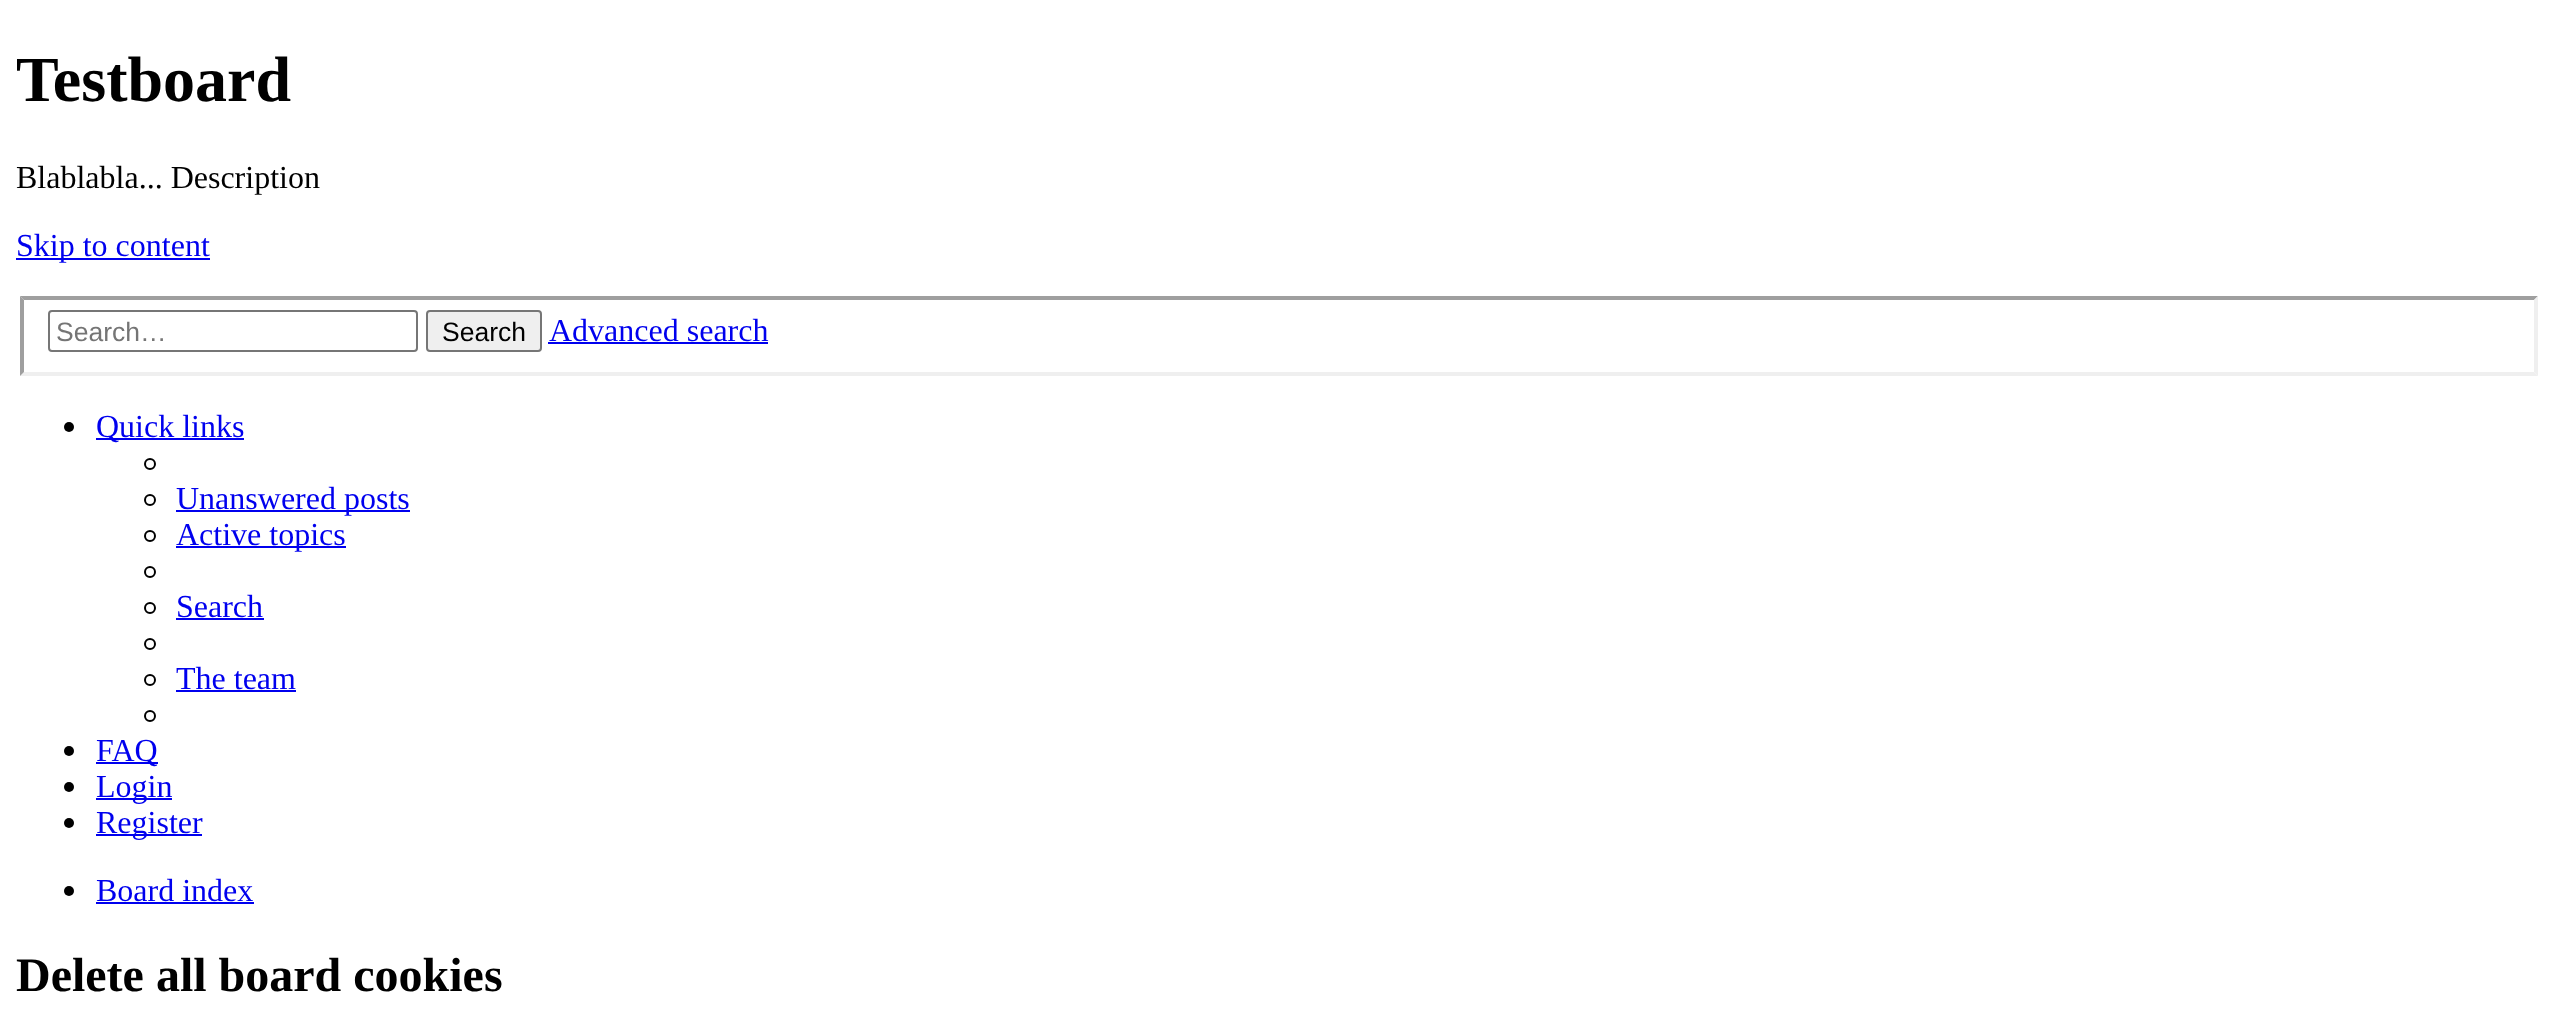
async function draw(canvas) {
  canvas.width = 2558
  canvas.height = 1030
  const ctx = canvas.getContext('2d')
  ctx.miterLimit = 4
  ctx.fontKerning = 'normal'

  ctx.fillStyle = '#fff'
  ctx.fillRect(0, 0, 2558, 1030)
  ctx.font = 'bold 64px Liberation Serif'
  ctx.fillStyle = '#000'
  ctx.fillText('Testboard', 16, 101)
  ctx.font = '32px Liberation Serif'
  ctx.fillText('Blablabla... Description', 16, 188)
  ctx.fillStyle = '#00e'
  ctx.fillRect(16, 258, 194, 2)
  ctx.fillText('Skip to content', 16, 256)
  ctx.fillStyle = '#9f9f9f'
  ctx.beginPath()
  ctx.moveTo(20, 296)
  ctx.lineTo(2538, 296)
  ctx.lineTo(2534, 300)
  ctx.lineTo(24, 300)
  ctx.closePath()
  ctx.fill()
  ctx.fillStyle = '#efefef'
  ctx.beginPath()
  ctx.moveTo(2538, 296)
  ctx.lineTo(2538, 376)
  ctx.lineTo(2534, 372)
  ctx.lineTo(2534, 300)
  ctx.closePath()
  ctx.fill()
  ctx.beginPath()
  ctx.moveTo(2538, 376)
  ctx.lineTo(20, 376)
  ctx.lineTo(24, 372)
  ctx.lineTo(2534, 372)
  ctx.closePath()
  ctx.fill()
  ctx.fillStyle = '#9f9f9f'
  ctx.beginPath()
  ctx.moveTo(20, 376)
  ctx.lineTo(20, 296)
  ctx.lineTo(24, 300)
  ctx.lineTo(24, 372)
  ctx.closePath()
  ctx.fill()
  ctx.beginPath()
  ctx.roundRect(49, 311, 368, 40, 3)
  ctx.strokeStyle = '#767676'
  ctx.lineWidth = 2
  ctx.stroke()
  ctx.font = '26.5px Liberation Sans'
  ctx.fillStyle = '#757575'
  ctx.fillText('Search…', 56, 341)
  ctx.fillStyle = '#efefef'
  ctx.beginPath()
  ctx.roundRect(427, 311, 114, 40, 3)
  ctx.fill()
  ctx.stroke()
  ctx.fillStyle = '#000'
  ctx.fillText('Search', 442, 341)
  ctx.font = '32px Liberation Serif'
  ctx.fillStyle = '#00e'
  ctx.fillText('Advanced search', 549, 341)
  ctx.fillRect(548, 342, 220, 2)
  ctx.fillStyle = '#000'
  ctx.beginPath()
  ctx.arc(69, 427, 5, 0, 2 * Math.PI)
  ctx.fill()
  ctx.fillStyle = '#00e'
  ctx.fillRect(96, 438, 148, 2)
  ctx.fillText('Quick links', 96, 437)
  ctx.beginPath()
  ctx.arc(150, 464, 5, 0, 2 * Math.PI)
  ctx.strokeStyle = '#000'
  ctx.stroke()
  ctx.beginPath()
  ctx.arc(150, 500, 5, 0, 2 * Math.PI)
  ctx.stroke()
  ctx.fillRect(176, 510, 234, 2)
  ctx.fillText('Unanswered posts', 176, 509)
  ctx.beginPath()
  ctx.arc(150, 536, 5, 0, 2 * Math.PI)
  ctx.stroke()
  ctx.fillRect(176, 546, 170, 2)
  ctx.fillText('Active topics', 176, 545)
  ctx.beginPath()
  ctx.arc(150, 572, 5, 0, 2 * Math.PI)
  ctx.stroke()
  ctx.beginPath()
  ctx.arc(150, 608, 5, 0, 2 * Math.PI)
  ctx.stroke()
  ctx.fillText('Search', 176, 617)
  ctx.fillRect(176, 618, 88, 2)
  ctx.beginPath()
  ctx.arc(150, 644, 5, 0, 2 * Math.PI)
  ctx.stroke()
  ctx.beginPath()
  ctx.arc(150, 680, 5, 0, 2 * Math.PI)
  ctx.stroke()
  ctx.fillText('The team', 176, 689)
  ctx.fillRect(176, 690, 120, 2)
  ctx.beginPath()
  ctx.arc(150, 716, 5, 0, 2 * Math.PI)
  ctx.stroke()
  ctx.fillStyle = '#000'
  ctx.beginPath()
  ctx.arc(69, 751, 5, 0, 2 * Math.PI)
  ctx.fill()
  ctx.fillStyle = '#00e'
  ctx.fillRect(96, 762, 62, 2)
  ctx.fillText('FAQ', 96, 761)
  ctx.fillStyle = '#000'
  ctx.beginPath()
  ctx.arc(69, 787, 5, 0, 2 * Math.PI)
  ctx.fill()
  ctx.fillStyle = '#00e'
  ctx.fillRect(96, 798, 76, 2)
  ctx.fillText('Login', 96, 797)
  ctx.fillStyle = '#000'
  ctx.beginPath()
  ctx.arc(69, 823, 5, 0, 2 * Math.PI)
  ctx.fill()
  ctx.fillStyle = '#00e'
  ctx.fillRect(96, 834, 106, 2)
  ctx.fillText('Register', 96, 833)
  ctx.fillStyle = '#000'
  ctx.beginPath()
  ctx.arc(69, 891, 5, 0, 2 * Math.PI)
  ctx.fill()
  ctx.fillStyle = '#00e'
  ctx.fillText('Board index', 96, 901)
  ctx.fillRect(96, 902, 158, 2)
  ctx.font = 'bold 48px Liberation Serif'
  ctx.fillStyle = '#000'
  ctx.fillText('Delete all board cookies', 16, 991)
}

draw(document.querySelector('canvas'))
